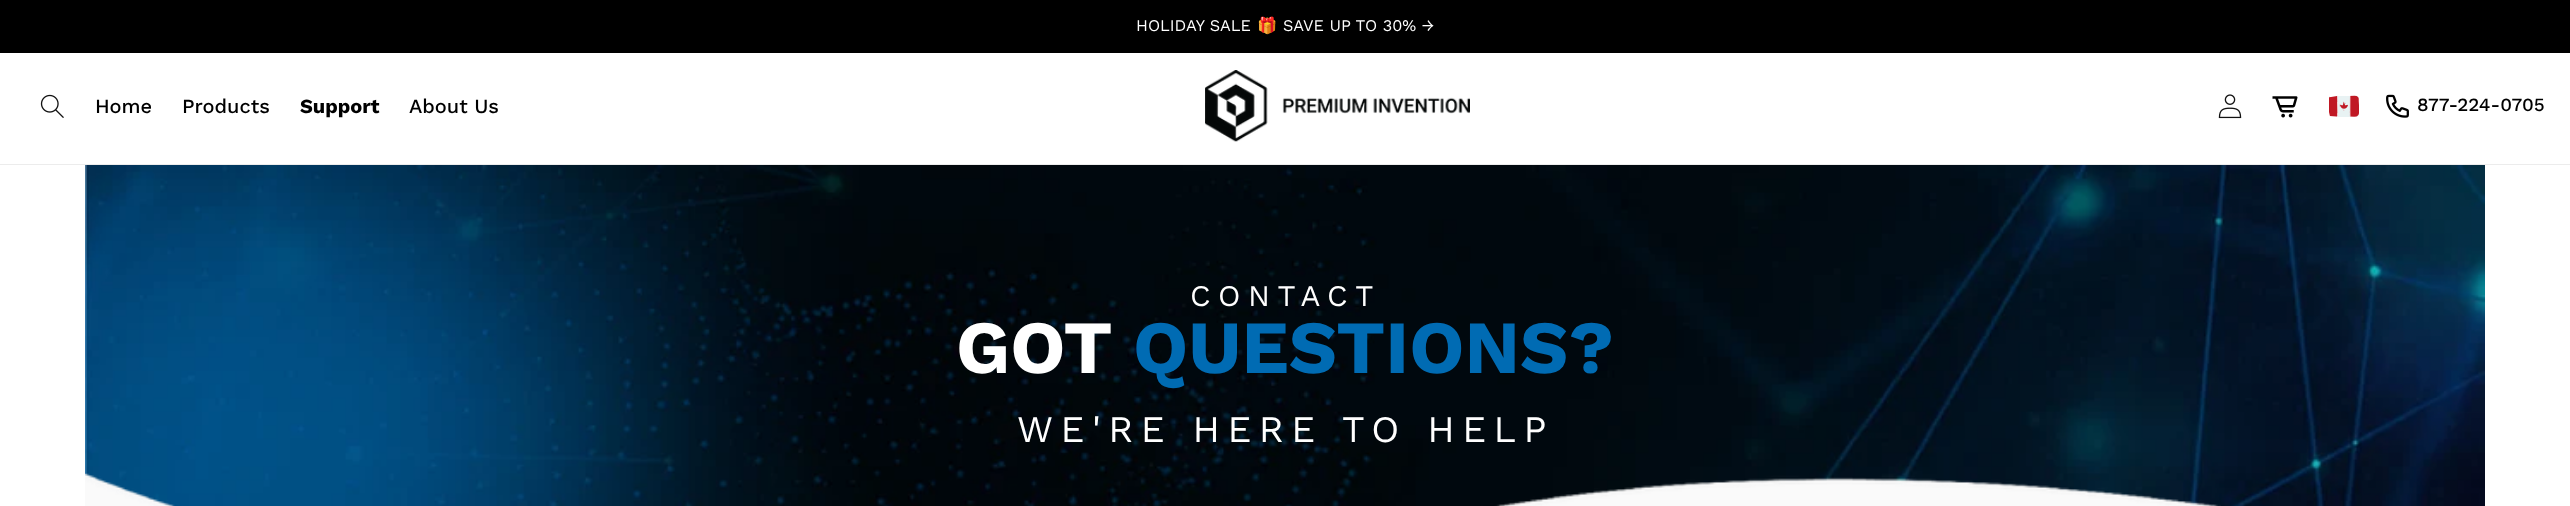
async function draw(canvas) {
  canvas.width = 2570
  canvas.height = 506
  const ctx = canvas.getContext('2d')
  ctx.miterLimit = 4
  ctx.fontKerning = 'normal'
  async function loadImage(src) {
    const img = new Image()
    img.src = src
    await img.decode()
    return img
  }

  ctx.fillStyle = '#fff'
  ctx.fillRect(0, 0, 2570, 506)
  ctx.fillStyle = '#000'
  ctx.fillRect(0, 0, 2570, 53)
  ctx.font = '16.25px Work Sans'
  ctx.fillStyle = '#fff'
  ctx.fillText('HOLIDAY SALE', 1136, 31)
  ctx.font = '16.25px Noto Color Emoji'
  ctx.fillText('🎁', 1257, 31)
  ctx.font = '16.25px Work Sans'
  ctx.fillText('SAVE UP TO 30% →', 1283, 31)
  ctx.fillStyle = '#ececec'
  ctx.fillRect(0, 164, 2570, 1)
  ctx.drawImage(await loadImage('image0.png'), 40, 94, 24, 24)
  ctx.font = '500 20px Work Sans'
  ctx.fillStyle = '#000'
  ctx.fillText('Home', 95, 113)
  ctx.fillText('Products', 182, 113)
  ctx.font = 'bold 20px Work Sans'
  ctx.fillText('Support', 300, 113)
  ctx.font = '500 20px Work Sans'
  ctx.fillText('About Us', 409, 113)
  ctx.drawImage(await loadImage('image1.png'), 1205, 70, 265, 72)
  ctx.drawImage(await loadImage('image2.png'), 2218, 94, 24, 25)
  ctx.drawImage(await loadImage('image3.png'), 2272, 96, 26, 22)
  ctx.drawImage(await loadImage('image4.png'), 2329, 95, 30, 22)
  ctx.drawImage(await loadImage('image5.png'), 2386, 94, 23, 24)
  ctx.font = '500 18.75px Work Sans'
  ctx.fillText('877-224-0705', 2417, 111)
  ctx.drawImage(await loadImage('image6.png'), 85, 165, 2400, 341)
  ctx.letterSpacing = '7.5px'
  ctx.font = '30px Work Sans'
  ctx.fillStyle = '#fff'
  ctx.fillText('CONTACT', 1190, 306)
  ctx.letterSpacing = '0px'
  ctx.font = 'bold 75px Work Sans'
  ctx.fillText('GOT', 956, 373)
  ctx.fillStyle = '#006bb3'
  ctx.fillText('QUESTIONS?', 1133, 373)
  ctx.letterSpacing = '7.5px'
  ctx.font = '37.5px Work Sans'
  ctx.fillStyle = '#fff'
  ctx.fillText('WE\'RE HERE TO HELP', 1017, 442)
  ctx.drawImage(await loadImage('image7.png'), 85, 473, 2136, 33)
}

draw(document.querySelector('canvas'))
